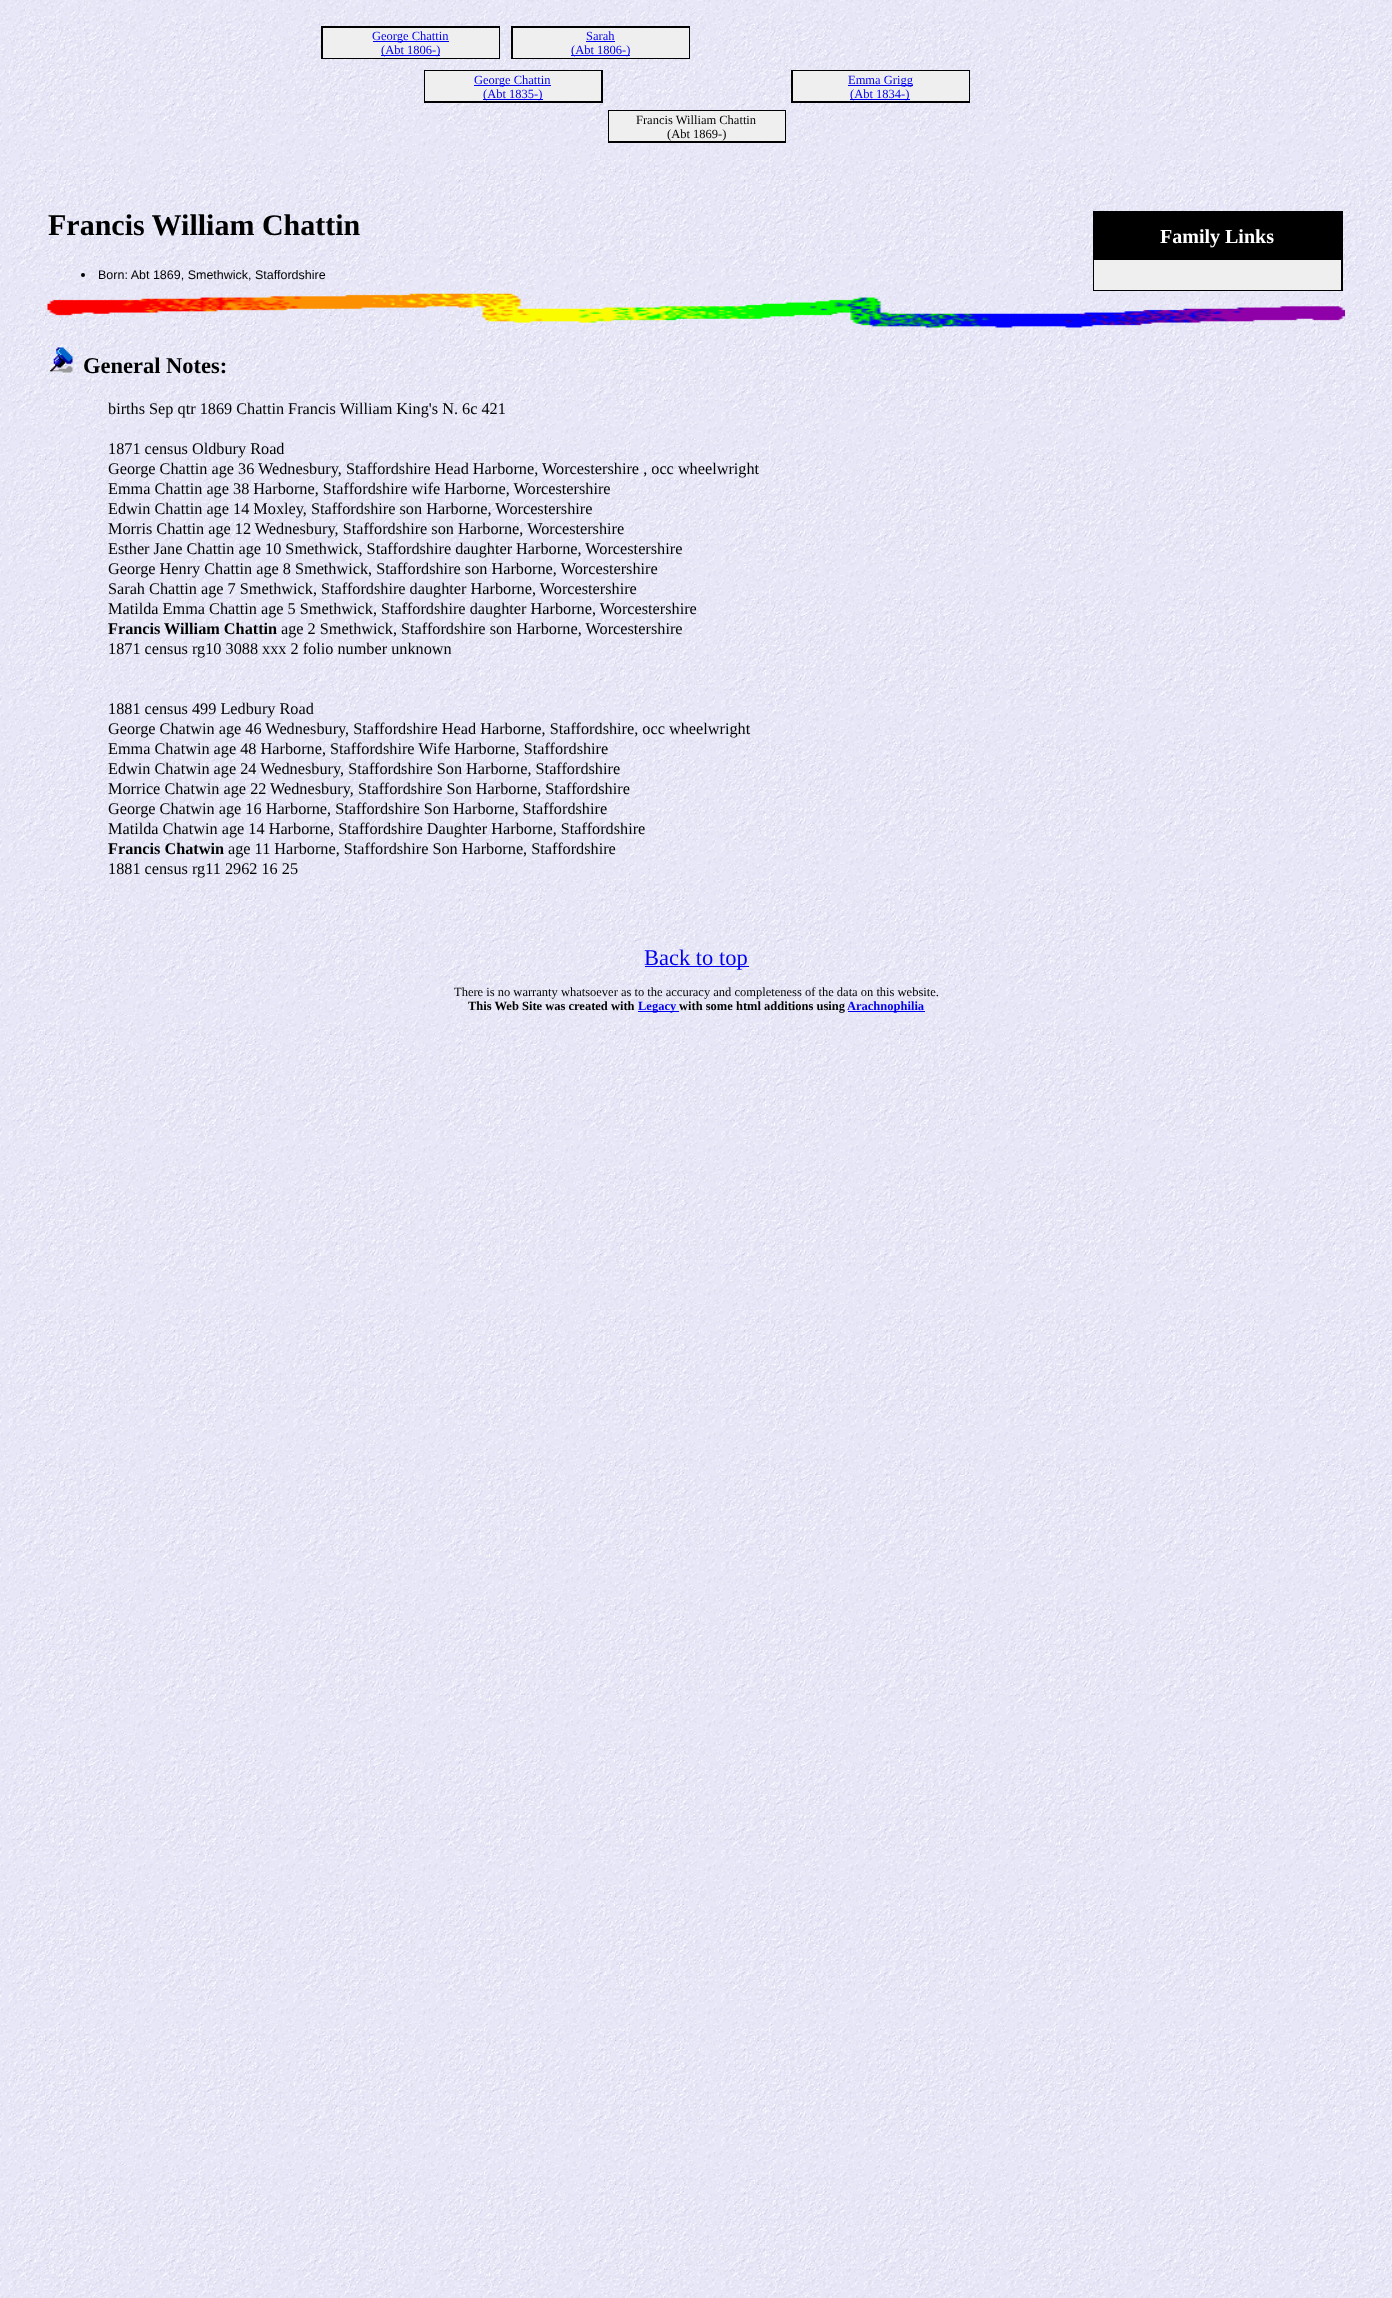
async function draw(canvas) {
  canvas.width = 1392
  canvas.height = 2298
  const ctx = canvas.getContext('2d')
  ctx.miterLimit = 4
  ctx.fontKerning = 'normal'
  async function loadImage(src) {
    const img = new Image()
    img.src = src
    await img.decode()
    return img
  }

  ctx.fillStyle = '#fff'
  ctx.fillRect(0, 0, 1392, 2298)
  ctx.drawImage(await loadImage('image0.png'), 0, 0, 1392, 2298)
  ctx.fillStyle = '#000'
  ctx.fillRect(321, 26, 179, 33)
  ctx.fillStyle = '#efefef'
  ctx.fillRect(323, 28, 176, 30)
  ctx.fillStyle = '#00e'
  ctx.fillRect(373, 41, 76, 1)
  ctx.font = '12.5px Liberation Serif'
  ctx.fillText('George Chattin', 372, 40)
  ctx.fillRect(381, 55, 59, 1)
  ctx.fillText('(Abt 1806-)', 381, 54)
  ctx.fillStyle = '#000'
  ctx.fillRect(511, 26, 179, 33)
  ctx.fillStyle = '#efefef'
  ctx.fillRect(513, 28, 176, 30)
  ctx.fillStyle = '#00e'
  ctx.fillText('Sarah', 586, 40)
  ctx.fillRect(586, 41, 29, 1)
  ctx.fillRect(571, 55, 59, 1)
  ctx.fillText('(Abt 1806-)', 571, 54)
  ctx.fillStyle = '#000'
  ctx.fillRect(424, 70, 179, 33)
  ctx.fillStyle = '#efefef'
  ctx.fillRect(425, 71, 176, 30)
  ctx.fillStyle = '#00e'
  ctx.fillRect(474, 85, 77, 1)
  ctx.fillText('George Chattin', 474, 84)
  ctx.fillRect(483, 99, 60, 1)
  ctx.fillText('(Abt 1835-)', 483, 98)
  ctx.fillStyle = '#000'
  ctx.fillRect(791, 70, 179, 33)
  ctx.fillStyle = '#efefef'
  ctx.fillRect(793, 71, 176, 30)
  ctx.fillStyle = '#00e'
  ctx.fillRect(848, 85, 65, 1)
  ctx.fillText('Emma Grigg', 848, 84)
  ctx.fillRect(850, 99, 60, 1)
  ctx.fillText('(Abt 1834-)', 850, 98)
  ctx.fillStyle = '#000'
  ctx.fillRect(608, 110, 178, 33)
  ctx.fillStyle = '#efefef'
  ctx.fillRect(609, 111, 176, 30)
  ctx.fillStyle = '#000'
  ctx.fillText('Francis William Chattin', 636, 124)
  ctx.fillText('(Abt 1869-)', 667, 138)
  ctx.font = 'bold 30px Liberation Serif'
  ctx.fillText('Francis William Chattin', 48, 235)
  ctx.fillRect(1093, 211, 250, 80)
  ctx.font = 'bold 20px Liberation Serif'
  ctx.fillStyle = '#fff'
  ctx.fillText('Family Links', 1160, 243)
  ctx.fillStyle = '#efefef'
  ctx.fillRect(1094, 260, 247, 30)
  ctx.fillStyle = '#000'
  ctx.beginPath()
  ctx.arc(83, 275, 2, 0, 2 * Math.PI)
  ctx.fill()
  ctx.font = '12.5px Liberation Sans'
  ctx.fillText('Born: Abt 1869, Smethwick, Staffordshire', 98, 279)
  ctx.drawImage(await loadImage('image1.png'), 47, 293, 1298, 35)
  ctx.drawImage(await loadImage('image2.png'), 49, 347, 24, 26)
  ctx.font = 'bold 22.5px Liberation Serif'
  ctx.fillText('General Notes:', 83, 373)
  ctx.font = '16.25px Liberation Serif'
  ctx.fillText('births Sep qtr 1869 Chattin Francis William King\'s N. 6c 421', 108, 414)
  ctx.fillText('1871 census Oldbury Road', 108, 454)
  ctx.fillText('George Chattin age 36', 108, 474)
  ctx.fillText('Wednesbury, Staffordshire Head Harborne, Worcestershire , occ wheelwright', 258, 474)
  ctx.fillText('Emma Chattin age 38 Harborne, Staffordshire wife Harborne, Worcestershire', 108, 494)
  ctx.fillText('Edwin Chattin age 14 Moxley, Staffordshire son Harborne, Worcestershire', 108, 514)
  ctx.fillText('Morris Chattin age 12 Wednesbury, Staffordshire son Harborne, Worcestershire', 108, 534)
  ctx.fillText('Esther Jane Chattin age 10 Smethwick, Staffordshire daughter Harborne, Worcestershire', 108, 554)
  ctx.fillText('George Henry Chattin age 8 Smethwick, Staffordshire son Harborne, Worcestershire', 108, 574)
  ctx.fillText('Sarah Chattin age 7 Smethwick, Staffordshire daughter Harborne, Worcestershire', 108, 594)
  ctx.fillText('Matilda Emma Chattin age 5 Smethwick, Staffordshire daughter Harborne, Worcestershire', 108, 614)
  ctx.font = 'bold 16.25px Liberation Serif'
  ctx.fillText('Francis William Chattin', 108, 634)
  ctx.font = '16.25px Liberation Serif'
  ctx.fillText('age 2 Smethwick, Staffordshire son Harborne, Worcestershire', 281, 634)
  ctx.fillText('1871 census rg10 3088 xxx 2 folio number unknown', 108, 654)
  ctx.fillText('1881 census 499 Ledbury Road', 108, 714)
  ctx.fillText('George Chatwin age 46 Wednesbury, Staffordshire Head Harborne, Staffordshire, occ wheelwright', 108, 734)
  ctx.fillText('Emma Chatwin age 48 Harborne, Staffordshire Wife Harborne, Staffordshire', 108, 754)
  ctx.fillText('Edwin Chatwin age 24 Wednesbury, Staffordshire Son Harborne, Staffordshire', 108, 774)
  ctx.fillText('Morrice Chatwin age 22', 108, 794)
  ctx.fillText('Wednesbury, Staffordshire Son Harborne, Staffordshire', 270, 794)
  ctx.fillText('George Chatwin age 16 Harborne, Staffordshire Son Harborne, Staffordshire', 108, 814)
  ctx.fillText('Matilda Chatwin age 14 Harborne, Staffordshire Daughter Harborne, Staffordshire', 108, 834)
  ctx.font = 'bold 16.25px Liberation Serif'
  ctx.fillText('Francis Chatwin', 108, 854)
  ctx.font = '16.25px Liberation Serif'
  ctx.fillText('age 11 Harborne, Staffordshire Son Harborne, Staffordshire', 228, 854)
  ctx.fillText('1881 census rg11 2962 16 25', 108, 874)
  ctx.fillStyle = '#00e'
  ctx.fillRect(645, 966, 104, 1)
  ctx.font = '22.5px Liberation Serif'
  ctx.fillText('Back to top', 644, 965)
  ctx.font = '12.5px Liberation Serif'
  ctx.fillStyle = '#000'
  ctx.fillText('There is no warranty whatsoever as to the accuracy and completeness of the data on this website.', 454, 996)
  ctx.font = 'bold 12.5px Liberation Serif'
  ctx.fillText('This Web Site was created with', 468, 1010)
  ctx.fillStyle = '#00e'
  ctx.fillRect(638, 1011, 41, 1)
  ctx.fillText('Legacy', 638, 1010)
  ctx.fillStyle = '#000'
  ctx.fillText('with some html additions using', 679, 1010)
  ctx.fillStyle = '#00e'
  ctx.fillRect(848, 1011, 77, 1)
  ctx.fillText('Arachnophilia', 847, 1010)
}

draw(document.querySelector('canvas'))
